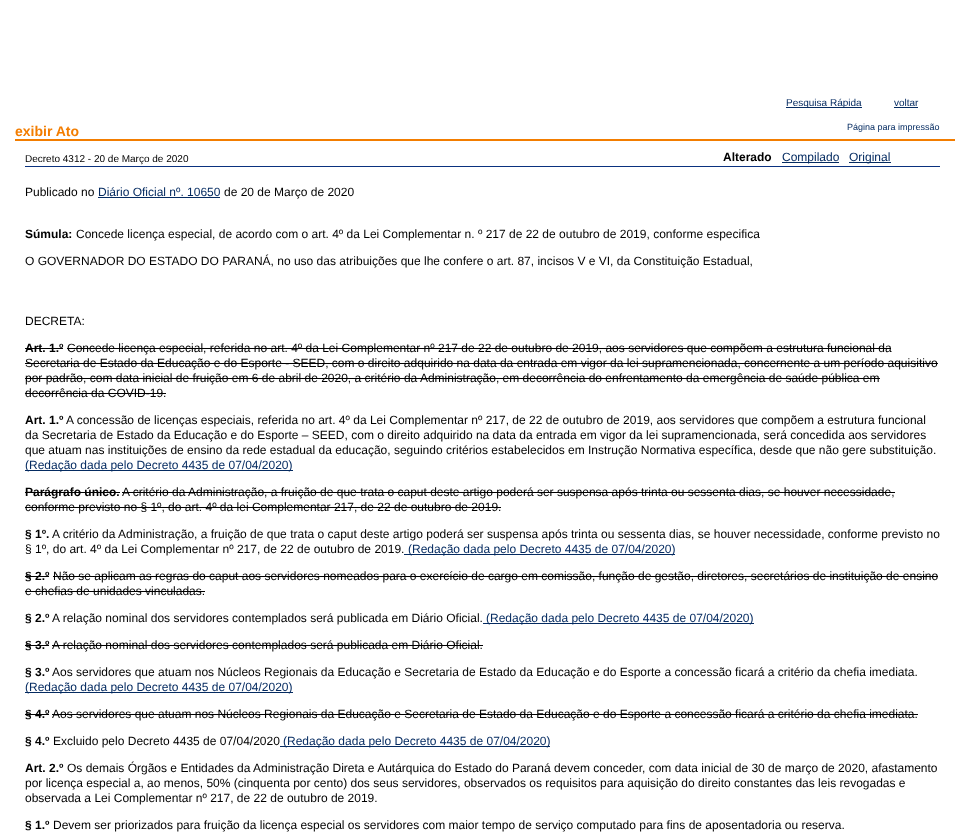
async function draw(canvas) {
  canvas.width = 965
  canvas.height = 832
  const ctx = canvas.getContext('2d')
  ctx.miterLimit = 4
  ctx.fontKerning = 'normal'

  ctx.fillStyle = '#fff'
  ctx.fillRect(0, 0, 965, 832)
  ctx.fillStyle = '#052b61'
  ctx.fillRect(786, 107, 76, 1)
  ctx.font = '10px Liberation Sans'
  ctx.fillText('Pesquisa Rápida', 786, 106)
  ctx.fillText('voltar', 894, 106)
  ctx.fillRect(894, 107, 24, 1)
  ctx.font = '9px Liberation Sans'
  ctx.fillText('Página para impressão', 847, 130)
  ctx.font = 'bold 12px Liberation Sans'
  ctx.fillStyle = '#000'
  ctx.fillText('Alterado', 723, 161)
  ctx.fillStyle = '#052b61'
  ctx.fillRect(782, 162, 57, 1)
  ctx.font = '12px Liberation Sans'
  ctx.fillText('Compilado', 782, 161)
  ctx.fillRect(849, 162, 42, 1)
  ctx.fillText('Original', 849, 161)
  ctx.fillStyle = '#0a317f'
  ctx.fillRect(25, 166, 915, 1)
  ctx.font = '10px Liberation Sans'
  ctx.fillStyle = '#000'
  ctx.fillText('Decreto 4312 - 20 de Março de 2020', 25, 162)
  ctx.font = '12px Liberation Sans'
  ctx.fillText('Publicado no', 25, 196)
  ctx.fillStyle = '#052b61'
  ctx.fillText('Diário Oficial nº. 10650', 98, 196)
  ctx.fillRect(98, 197, 122, 1)
  ctx.fillStyle = '#000'
  ctx.fillText('de 20 de Março de 2020', 224, 196)
  ctx.font = 'bold 12px Liberation Sans'
  ctx.fillText('Súmula:', 25, 238)
  ctx.font = '12px Liberation Sans'
  ctx.fillText('Concede licença especial, de acordo com o art. 4º da Lei Complementar n. º 217 de 22 de outubro de 2019, conforme especifica', 76, 238)
  ctx.fillText('O GOVERNADOR DO ESTADO DO PARANÁ, no uso das atribuições que lhe confere o art. 87, incisos V e VI, da Constituição Estadual,', 25, 265)
  ctx.fillText('DECRETA:', 25, 325)
  ctx.font = 'bold 12px Liberation Sans'
  ctx.fillText('Art. 1.º', 25, 352)
  ctx.fillRect(25, 348, 38, 1)
  ctx.font = '12px Liberation Sans'
  ctx.fillText('Concede licença especial, referida no art. 4º da Lei Complementar nº 217 de 22 de outubro de 2019, aos servidores que compõem a estrutura funcional da', 67, 352)
  ctx.fillRect(67, 348, 824, 1)
  ctx.fillText('Secretaria de Estado da Educação e do Esporte - SEED, com o direito adquirido na data da entrada em vigor da lei supramencionada, concernente a um período aquisitivo', 25, 367)
  ctx.fillRect(25, 363, 913, 1)
  ctx.fillText('por padrão, com data inicial de fruição em 6 de abril de 2020, a critério da Administração, em decorrência do enfrentamento da emergência de saúde pública em', 25, 382)
  ctx.fillRect(25, 378, 855, 1)
  ctx.fillText('decorrência da COVID-19.', 25, 397)
  ctx.fillRect(25, 393, 141, 1)
  ctx.font = 'bold 12px Liberation Sans'
  ctx.fillText('Art. 1.º', 25, 424)
  ctx.font = '12px Liberation Sans'
  ctx.fillText('A concessão de licenças especiais, referida no art. 4º da Lei Complementar nº 217, de 22 de outubro de 2019, aos servidores que compõem a estrutura funcional', 66, 424)
  ctx.fillText('da Secretaria de Estado da Educação e do Esporte – SEED, com o direito adquirido na data da entrada em vigor da lei supramencionada, será concedida aos servidores', 25, 439)
  ctx.fillText('que atuam nas instituições de ensino da rede estadual da educação, seguindo critérios estabelecidos em Instrução Normativa específica, desde que não gere substituição.', 25, 454)
  ctx.fillStyle = '#052b61'
  ctx.fillRect(25, 470, 268, 1)
  ctx.fillText('(Redação dada pelo Decreto 4435 de 07/04/2020)', 25, 469)
  ctx.font = 'bold 12px Liberation Sans'
  ctx.fillStyle = '#000'
  ctx.fillText('Parágrafo único.', 25, 496)
  ctx.fillRect(25, 492, 95, 1)
  ctx.font = '12px Liberation Sans'
  ctx.fillText('A critério da Administração, a fruição de que trata o caput deste artigo poderá ser suspensa após trinta ou sessenta dias, se houver necessidade,', 122, 496)
  ctx.fillRect(122, 492, 773, 1)
  ctx.fillText('conforme previsto no § 1º, do art. 4º da lei Complementar 217, de 22 de outubro de 2019.', 25, 511)
  ctx.fillRect(25, 507, 476, 1)
  ctx.font = 'bold 12px Liberation Sans'
  ctx.fillText('§ 1º.', 25, 538)
  ctx.font = '12px Liberation Sans'
  ctx.fillText('A critério da Administração, a fruição de que trata o caput deste artigo poderá ser suspensa após trinta ou sessenta dias, se houver necessidade, conforme previsto no', 52, 538)
  ctx.fillText('§ 1º, do art. 4º da Lei Complementar nº 217, de 22 de outubro de 2019.', 25, 553)
  ctx.fillStyle = '#052b61'
  ctx.fillRect(404, 554, 271, 1)
  ctx.fillText('(Redação dada pelo Decreto 4435 de 07/04/2020)', 408, 553)
  ctx.font = 'bold 12px Liberation Sans'
  ctx.fillStyle = '#000'
  ctx.fillText('§ 2.º', 25, 580)
  ctx.fillRect(25, 576, 24, 1)
  ctx.font = '12px Liberation Sans'
  ctx.fillText('Não se aplicam as regras do caput aos servidores nomeados para o exercício de cargo em comissão, função de gestão, diretores, secretários de instituição de ensino', 53, 580)
  ctx.fillRect(53, 576, 885, 1)
  ctx.fillText('e chefias de unidades vinculadas.', 25, 595)
  ctx.fillRect(25, 591, 180, 1)
  ctx.font = 'bold 12px Liberation Sans'
  ctx.fillText('§ 2.º', 25, 622)
  ctx.font = '12px Liberation Sans'
  ctx.fillText('A relação nominal dos servidores contemplados será publicada em Diário Oficial.', 52, 622)
  ctx.fillStyle = '#052b61'
  ctx.fillRect(483, 623, 271, 1)
  ctx.fillText('(Redação dada pelo Decreto 4435 de 07/04/2020)', 486, 622)
  ctx.font = 'bold 12px Liberation Sans'
  ctx.fillStyle = '#000'
  ctx.fillText('§ 3.º', 25, 649)
  ctx.fillRect(25, 645, 24, 1)
  ctx.font = '12px Liberation Sans'
  ctx.fillText('A relação nominal dos servidores contemplados será publicada em Diário Oficial.', 52, 649)
  ctx.fillRect(52, 645, 431, 1)
  ctx.font = 'bold 12px Liberation Sans'
  ctx.fillText('§ 3.º', 25, 676)
  ctx.font = '12px Liberation Sans'
  ctx.fillText('Aos servidores que atuam nos Núcleos Regionais da Educação e Secretaria de Estado da Educação e do Esporte a concessão ficará a critério da chefia imediata.', 52, 676)
  ctx.fillStyle = '#052b61'
  ctx.fillRect(25, 692, 268, 1)
  ctx.fillText('(Redação dada pelo Decreto 4435 de 07/04/2020)', 25, 691)
  ctx.font = 'bold 12px Liberation Sans'
  ctx.fillStyle = '#000'
  ctx.fillText('§ 4.º', 25, 718)
  ctx.fillRect(25, 714, 24, 1)
  ctx.font = '12px Liberation Sans'
  ctx.fillText('Aos servidores que atuam nos Núcleos Regionais da Educação e Secretaria de Estado da Educação e do Esporte a concessão ficará a critério da chefia imediata.', 52, 718)
  ctx.fillRect(52, 714, 866, 1)
  ctx.font = 'bold 12px Liberation Sans'
  ctx.fillText('§ 4.º', 25, 745)
  ctx.font = '12px Liberation Sans'
  ctx.fillText('Excluido pelo Decreto 4435 de 07/04/2020', 53, 745)
  ctx.fillStyle = '#052b61'
  ctx.fillRect(280, 746, 270, 1)
  ctx.fillText('(Redação dada pelo Decreto 4435 de 07/04/2020)', 283, 745)
  ctx.font = 'bold 12px Liberation Sans'
  ctx.fillStyle = '#000'
  ctx.fillText('Art. 2.º', 25, 772)
  ctx.font = '12px Liberation Sans'
  ctx.fillText('Os demais Órgãos e Entidades da Administração Direta e Autárquica do Estado do Paraná devem conceder, com data inicial de 30 de março de 2020, afastamento', 67, 772)
  ctx.fillText('por licença especial a, ao menos, 50% (cinquenta por cento) dos seus servidores, observados os requisitos para aquisição do direito constantes das leis revogadas e', 25, 787)
  ctx.fillText('observada a Lei Complementar nº 217, de 22 de outubro de 2019.', 25, 802)
  ctx.font = 'bold 12px Liberation Sans'
  ctx.fillText('§ 1.º', 25, 829)
  ctx.font = '12px Liberation Sans'
  ctx.fillText('Devem ser priorizados para fruição da licença especial os servidores com maior tempo de serviço computado para fins de aposentadoria ou reserva.', 53, 829)
  ctx.fillStyle = '#f37d00'
  ctx.fillRect(15, 139, 940, 2)
  ctx.font = 'bold 14px Liberation Sans'
  ctx.fillText('exibir Ato', 15, 136)
}

draw(document.querySelector('canvas'))
